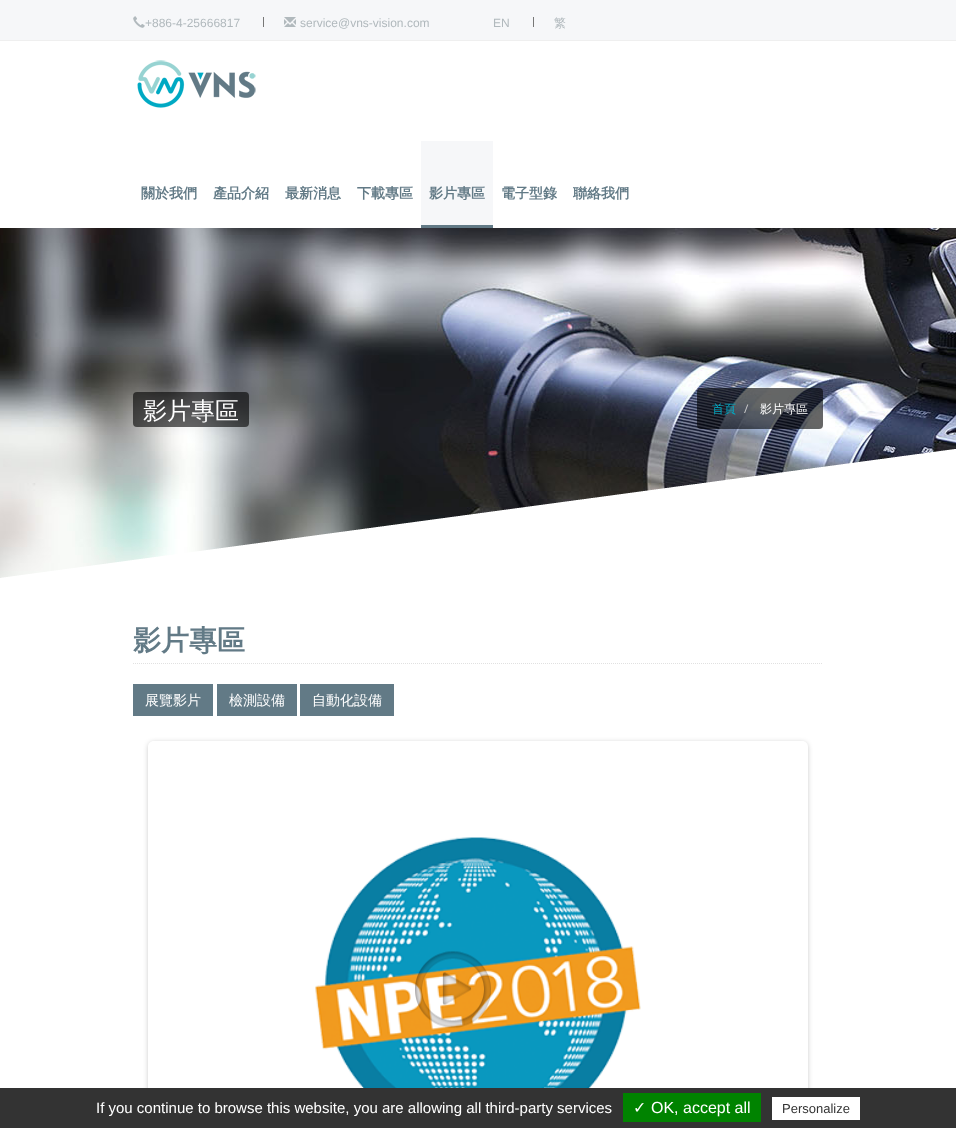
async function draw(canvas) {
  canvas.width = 956
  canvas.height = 1128
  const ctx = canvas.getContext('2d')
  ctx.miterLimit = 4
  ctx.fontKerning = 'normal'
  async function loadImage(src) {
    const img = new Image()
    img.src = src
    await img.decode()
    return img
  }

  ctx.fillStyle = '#fff'
  ctx.fillRect(0, 0, 956, 1128)
  ctx.fillStyle = '#f6f7f9'
  ctx.fillRect(0, 0, 956, 40)
  ctx.fillStyle = '#efefef'
  ctx.fillRect(0, 40, 956, 1)
  ctx.drawImage(await loadImage('image0.png'), 133, 16, 12, 12)
  ctx.font = '12px Liberation Sans'
  ctx.fillStyle = '#b1b9bd'
  ctx.fillText('+886-4-25666817', 145, 27)
  ctx.fillStyle = '#777'
  ctx.fillRect(263, 17, 1, 10)
  ctx.drawImage(await loadImage('image1.png'), 284, 17, 12, 10)
  ctx.fillStyle = '#b1b9bd'
  ctx.fillText('service@vns-vision.com', 300, 27)
  ctx.fillText('EN', 493, 27)
  ctx.fillStyle = '#777'
  ctx.fillRect(533, 17, 1, 10)
  ctx.font = '500 12px WenQuanYi Zen Hei'
  ctx.fillStyle = '#b1b9bd'
  ctx.fillText('繁', 554, 27)
  ctx.drawImage(await loadImage('image2.png'), 137, 60, 119, 48)
  ctx.font = 'bold 14px WenQuanYi Zen Hei'
  ctx.fillStyle = '#627a86'
  ctx.fillText('關於我們', 141, 198)
  ctx.fillText('產品介紹', 213, 198)
  ctx.fillText('最新消息', 285, 198)
  ctx.fillText('下載專區', 357, 198)
  ctx.fillStyle = '#f6f7f9'
  ctx.fillRect(421, 141, 72, 84)
  ctx.fillStyle = '#627a86'
  ctx.fillRect(421, 225, 72, 3)
  ctx.fillText('影片專區', 429, 198)
  ctx.fillText('電子型錄', 501, 198)
  ctx.fillText('聯絡我們', 573, 198)
  ctx.drawImage(await loadImage('image3.png'), 0, 228, 956, 350)
  ctx.fillStyle = '#00000099'
  ctx.beginPath()
  ctx.roundRect(133, 392, 116, 35, 4)
  ctx.fill()
  ctx.font = '500 24px WenQuanYi Zen Hei'
  ctx.fillStyle = '#fff'
  ctx.fillText('影片專區', 143, 419)
  ctx.fillStyle = '#00000099'
  ctx.beginPath()
  ctx.roundRect(697, 388, 126, 41, 4)
  ctx.fill()
  ctx.font = '500 12px WenQuanYi Zen Hei'
  ctx.fillStyle = '#00a9c3'
  ctx.fillText('首頁', 712, 413)
  ctx.font = '12px Open Sans'
  ctx.fillStyle = '#ccc'
  ctx.fillText('/', 744, 413)
  ctx.font = '500 12px WenQuanYi Zen Hei'
  ctx.fillStyle = '#fff'
  ctx.fillText('影片專區', 760, 413)
  ctx.drawImage(await loadImage('image4.png'), 1, 449, 955, 129)
  ctx.beginPath()
  ctx.moveTo(133, 663.5)
  ctx.lineTo(823, 663.5)
  ctx.strokeStyle = '#e1e1e1'
  ctx.setLineDash([1, 1])
  ctx.stroke()
  ctx.font = 'bold 28px WenQuanYi Zen Hei'
  ctx.fillStyle = '#627a86'
  ctx.fillText('影片專區', 133, 650)
  ctx.fillRect(133, 684, 80, 32)
  ctx.font = '500 14px WenQuanYi Zen Hei'
  ctx.fillStyle = '#fff'
  ctx.fillText('展覽影片', 145, 705)
  ctx.fillStyle = '#627a86'
  ctx.fillRect(217, 684, 80, 32)
  ctx.fillStyle = '#fff'
  ctx.fillText('檢測設備', 229, 705)
  ctx.fillStyle = '#627a86'
  ctx.fillRect(300, 684, 94, 32)
  ctx.fillStyle = '#fff'
  ctx.fillText('自動化設備', 312, 705)
  ctx.save()
  ctx.beginPath()
  ctx.moveTo(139, 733)
  ctx.lineTo(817, 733)
  ctx.lineTo(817, 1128)
  ctx.lineTo(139, 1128)
  ctx.closePath()
  ctx.moveTo(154, 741)
  ctx.lineTo(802, 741)
  ctx.bezierCurveTo(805.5, 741, 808, 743.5, 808, 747)
  ctx.lineTo(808, 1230)
  ctx.bezierCurveTo(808, 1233.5, 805.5, 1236, 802, 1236)
  ctx.lineTo(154, 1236)
  ctx.bezierCurveTo(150.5, 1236, 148, 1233.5, 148, 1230)
  ctx.lineTo(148, 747)
  ctx.bezierCurveTo(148, 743.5, 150.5, 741, 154, 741)
  ctx.closePath()
  ctx.clip('evenodd')
  ctx.fillStyle = '#00000033'
  ctx.filter = 'blur(2.5px)'
  ctx.beginPath()
  ctx.roundRect(148, 742, 660, 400, 6)
  ctx.fill()
  ctx.filter = 'none'
  ctx.restore()
  ctx.drawImage(await loadImage('image5.png'), 315, 837, 326, 251)
  ctx.drawImage(await loadImage('image6.png'), 415, 951, 76, 77)
  ctx.fillStyle = '#333'
  ctx.fillRect(0, 1088, 956, 40)
  ctx.font = '15px Liberation Sans'
  ctx.fillStyle = '#fff'
  ctx.fillText('If you continue to browse this website, you are allowing all third-party services', 96, 1113)
  ctx.fillStyle = '#008300'
  ctx.fillRect(623, 1093, 138, 29)
  ctx.font = '16px DejaVu Sans'
  ctx.fillStyle = '#fff'
  ctx.fillText('✓', 633, 1113)
  ctx.font = '16px Liberation Sans'
  ctx.fillText('OK, accept all', 651, 1113)
  ctx.fillRect(772, 1097, 88, 23)
  ctx.font = '13px Liberation Sans'
  ctx.fillStyle = '#333'
  ctx.fillText('Personalize', 782, 1113)
}

draw(document.querySelector('canvas'))
